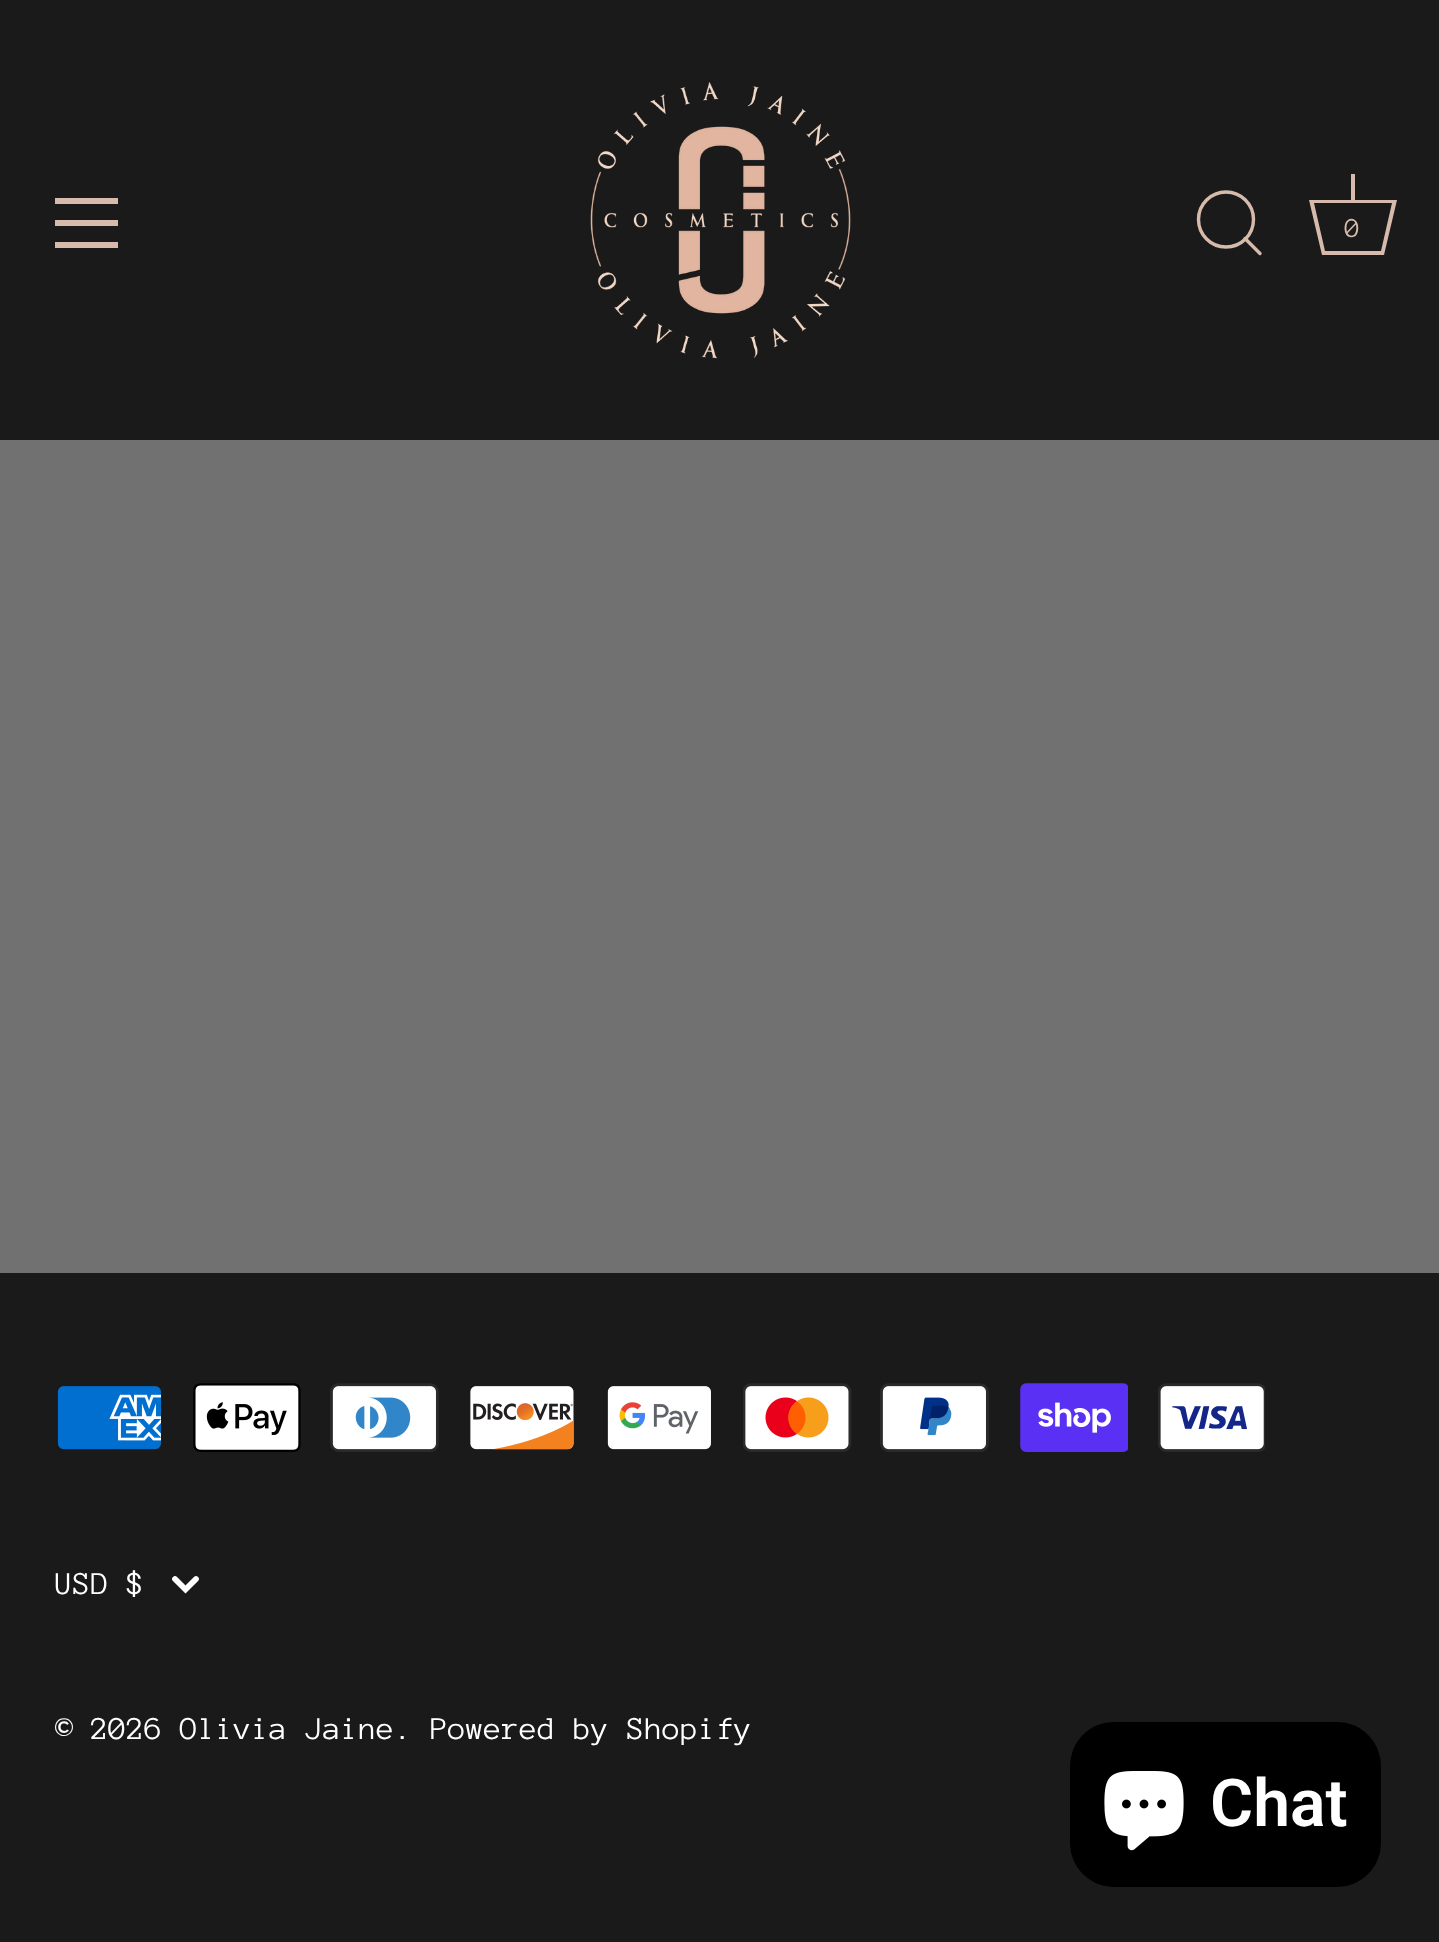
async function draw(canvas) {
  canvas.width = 1439
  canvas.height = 1942
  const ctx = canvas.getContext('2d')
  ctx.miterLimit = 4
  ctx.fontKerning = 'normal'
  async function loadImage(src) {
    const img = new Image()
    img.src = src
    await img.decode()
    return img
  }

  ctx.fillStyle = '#717171'
  ctx.fillRect(0, 0, 1439, 1942)
  ctx.fillStyle = '#1a1a1a'
  ctx.fillRect(0, 0, 1439, 440)
  ctx.fillStyle = '#d6bbac'
  ctx.fillRect(55, 198, 63, 6)
  ctx.fillRect(55, 220, 63, 6)
  ctx.fillRect(55, 242, 63, 6)
  ctx.drawImage(await loadImage('image0.png'), 590, 82, 261, 277)
  ctx.beginPath()
  ctx.arc(1226, 219.5, 27.5, 0, 2 * Math.PI)
  ctx.strokeStyle = '#d6bbac'
  ctx.lineWidth = 3.4
  ctx.stroke()
  ctx.beginPath()
  ctx.moveTo(1260, 253.5)
  ctx.lineTo(1245, 238.5)
  ctx.lineCap = 'round'
  ctx.lineJoin = 'round'
  ctx.stroke()
  ctx.fillRect(1351, 174, 4, 26)
  ctx.beginPath()
  ctx.moveTo(1392, 203)
  ctx.lineTo(1381, 251)
  ctx.lineTo(1325, 251)
  ctx.lineTo(1314, 203)
  ctx.lineTo(1392, 203)
  ctx.moveTo(1397, 200)
  ctx.lineTo(1309, 200)
  ctx.lineTo(1322, 255)
  ctx.lineTo(1384, 255)
  ctx.closePath()
  ctx.fill()
  ctx.font = '28px Anonymous Pro'
  ctx.fillText('0', 1345, 237)
  ctx.fillStyle = '#1a1a1a'
  ctx.fillRect(0, 1273, 1439, 669)
  ctx.drawImage(await loadImage('image1.png'), 57, 1386, 104, 64)
  ctx.drawImage(await loadImage('image2.png'), 193, 1383, 108, 69)
  ctx.drawImage(await loadImage('image3.png'), 330, 1383, 109, 69)
  ctx.drawImage(await loadImage('image4.png'), 470, 1386, 104, 64)
  ctx.drawImage(await loadImage('image5.png'), 607, 1386, 104, 64)
  ctx.drawImage(await loadImage('image6.png'), 743, 1383, 109, 69)
  ctx.drawImage(await loadImage('image7.png'), 880, 1383, 109, 69)
  ctx.drawImage(await loadImage('image8.png'), 1020, 1383, 108, 69)
  ctx.drawImage(await loadImage('image9.png'), 1158, 1383, 107, 69)
  ctx.font = '32.75px Anonymous Pro'
  ctx.fillStyle = '#fff'
  ctx.fillText('USD $', 55, 1594)
  ctx.beginPath()
  ctx.moveTo(175, 1579)
  ctx.lineTo(185.5, 1589.5)
  ctx.lineTo(196, 1579)
  ctx.strokeStyle = '#fff'
  ctx.lineWidth = 5.8
  ctx.lineJoin = 'miter'
  ctx.stroke()
  ctx.fillText('© 2026 Olivia Jaine. Powered by Shopify', 55, 1739)
  ctx.fillStyle = '#000'
  ctx.beginPath()
  ctx.roundRect(1070, 1722, 311, 165, 44)
  ctx.fill()
  ctx.drawImage(await loadImage('image10.png'), 1104, 1771, 80, 80)
  ctx.font = '600 66px Roboto'
  ctx.fillStyle = '#fff'
  ctx.fillText('Chat', 1210, 1826)
}

draw(document.querySelector('canvas'))
